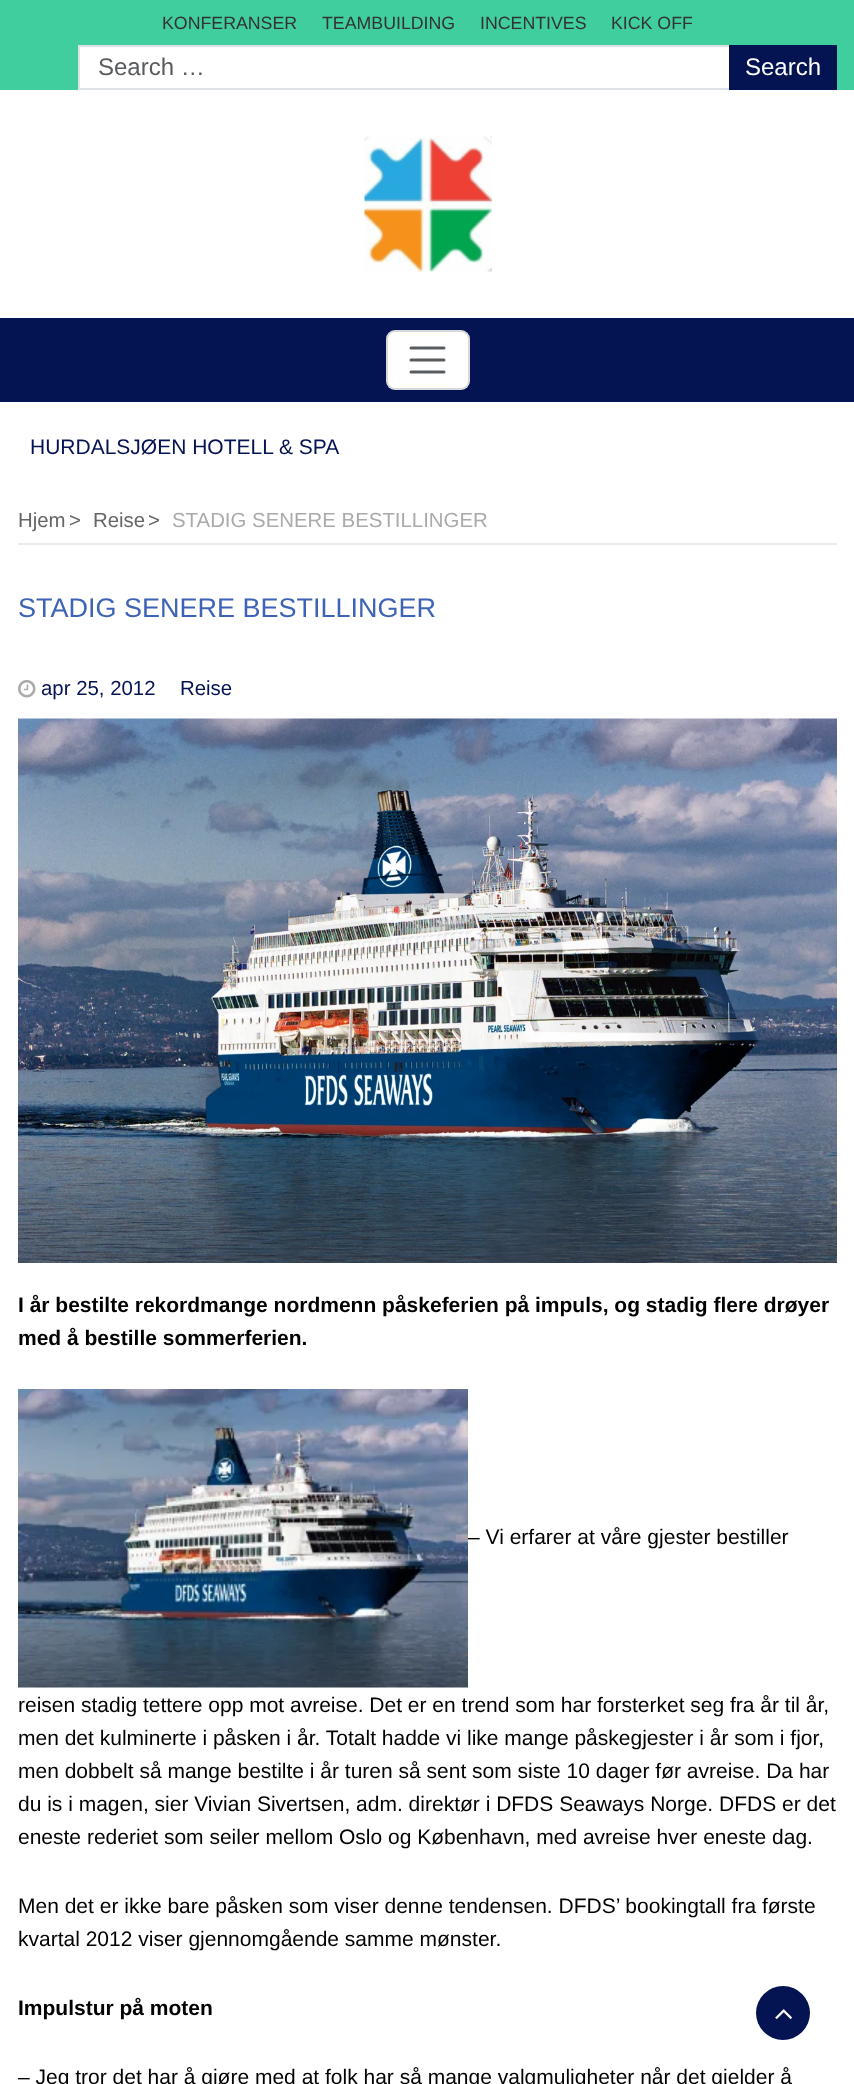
async function draw(canvas) {
  canvas.width = 854
  canvas.height = 2084
  const ctx = canvas.getContext('2d')
  ctx.miterLimit = 4
  ctx.fontKerning = 'normal'
  async function loadImage(src) {
    const img = new Image()
    img.src = src
    await img.decode()
    return img
  }

  ctx.fillStyle = '#fff'
  ctx.fillRect(0, 0, 854, 2084)
  ctx.fillStyle = '#40ce9f'
  ctx.fillRect(0, 0, 854, 90)
  ctx.font = '17.75px Liberation Sans'
  ctx.fillStyle = '#333'
  ctx.fillText('KONFERANSER', 162, 29)
  ctx.fillText('TEAMBUILDING', 322, 29)
  ctx.fillText('INCENTIVES', 480, 29)
  ctx.fillText('KICK OFF', 611, 29)
  ctx.fillStyle = '#fff'
  ctx.beginPath()
  ctx.rect(79, 46, 651, 43)
  ctx.fill()
  ctx.strokeStyle = '#dee2e6'
  ctx.lineWidth = 2
  ctx.stroke()
  ctx.font = '24px Liberation Sans'
  ctx.fillStyle = '#595c5f'
  ctx.fillText('Search …', 98, 75)
  ctx.fillStyle = '#041351'
  ctx.fillRect(729, 45, 108, 45)
  ctx.fillStyle = '#fff'
  ctx.fillText('Search', 745, 75)
  ctx.drawImage(await loadImage('image0.png'), 364, 136, 128, 136)
  ctx.fillStyle = '#041351'
  ctx.fillRect(0, 318, 854, 84)
  ctx.fillStyle = '#fff'
  ctx.beginPath()
  ctx.roundRect(386, 330, 84, 60, 9)
  ctx.fill()
  ctx.beginPath()
  ctx.roundRect(387, 331, 82, 58, 8)
  ctx.strokeStyle = '#00000026'
  ctx.stroke()
  ctx.beginPath()
  ctx.moveTo(411, 348)
  ctx.lineTo(444, 348)
  ctx.moveTo(411, 360)
  ctx.lineTo(444, 360)
  ctx.moveTo(411, 372)
  ctx.lineTo(444, 372)
  ctx.strokeStyle = '#595c5f'
  ctx.lineWidth = 3
  ctx.lineCap = 'round'
  ctx.stroke()
  ctx.font = '21px Liberation Sans'
  ctx.fillStyle = '#041351'
  ctx.fillText('HURDALSJØEN HOTELL & SPA', 30, 454)
  ctx.fillStyle = '#e9ecef'
  ctx.fillRect(18, 543, 819, 2)
  ctx.font = '20.4px Liberation Sans'
  ctx.fillStyle = '#666'
  ctx.fillText('Hjem', 18, 527)
  ctx.fillText('>', 69, 527)
  ctx.fillText('Reise', 93, 527)
  ctx.fillText('>', 148, 527)
  ctx.fillStyle = '#aaa'
  ctx.fillText('STADIG SENERE BESTILLINGER', 172, 527)
  ctx.font = '27px Liberation Sans'
  ctx.fillStyle = '#3e63b6'
  ctx.fillText('STADIG SENERE BESTILLINGER', 18, 617)
  ctx.drawImage(await loadImage('image1.png'), 18, 680, 18, 18)
  ctx.font = '20.4px Liberation Sans'
  ctx.fillStyle = '#041351'
  ctx.fillText('apr 25, 2012', 41, 695)
  ctx.fillText('Reise', 180, 695)
  ctx.drawImage(await loadImage('image2.png'), 18, 718, 819, 545)
  ctx.font = 'bold 21px Liberation Sans'
  ctx.fillStyle = '#000'
  ctx.fillText('I år bestilte rekordmange nordmenn påskeferien på impuls, og stadig flere drøyer', 18, 1312)
  ctx.fillText('med å bestille sommerferien.', 18, 1345)
  ctx.drawImage(await loadImage('image3.png'), 18, 1389, 450, 299)
  ctx.font = '21px Liberation Sans'
  ctx.fillText('– Vi erfarer at våre gjester bestiller', 468, 1544)
  ctx.fillText('reisen stadig tettere opp mot avreise. Det er en trend som har forsterket seg fra år til år,', 18, 1712)
  ctx.fillText('men det kulminerte i påsken i år. Totalt hadde vi like mange påskegjester i år som i fjor,', 18, 1745)
  ctx.fillText('men dobbelt så mange bestilte i år turen så sent som siste 10 dager før avreise. Da har', 18, 1778)
  ctx.fillText('du is i magen, sier Vivian Sivertsen, adm. direktør i DFDS Seaways Norge. DFDS er det', 18, 1811)
  ctx.fillText('eneste rederiet som seiler mellom Oslo og København, med avreise hver eneste dag.', 18, 1844)
  ctx.fillText('Men det er ikke bare påsken som viser denne tendensen. DFDS’ bookingtall fra første', 18, 1913)
  ctx.fillText('kvartal 2012 viser gjennomgående samme mønster.', 18, 1946)
  ctx.font = 'bold 21px Liberation Sans'
  ctx.fillText('Impulstur på moten', 18, 2015)
  ctx.font = '21px Liberation Sans'
  ctx.fillText('– Jeg tror det har å gjøre med at folk har så mange valgmuligheter når det gjelder å', 18, 2084)
  ctx.fillStyle = '#041351'
  ctx.beginPath()
  ctx.arc(783, 2013, 27, 0, 2 * Math.PI)
  ctx.fill()
  ctx.drawImage(await loadImage('image4.png'), 775, 2009, 17, 10)
}

draw(document.querySelector('canvas'))
